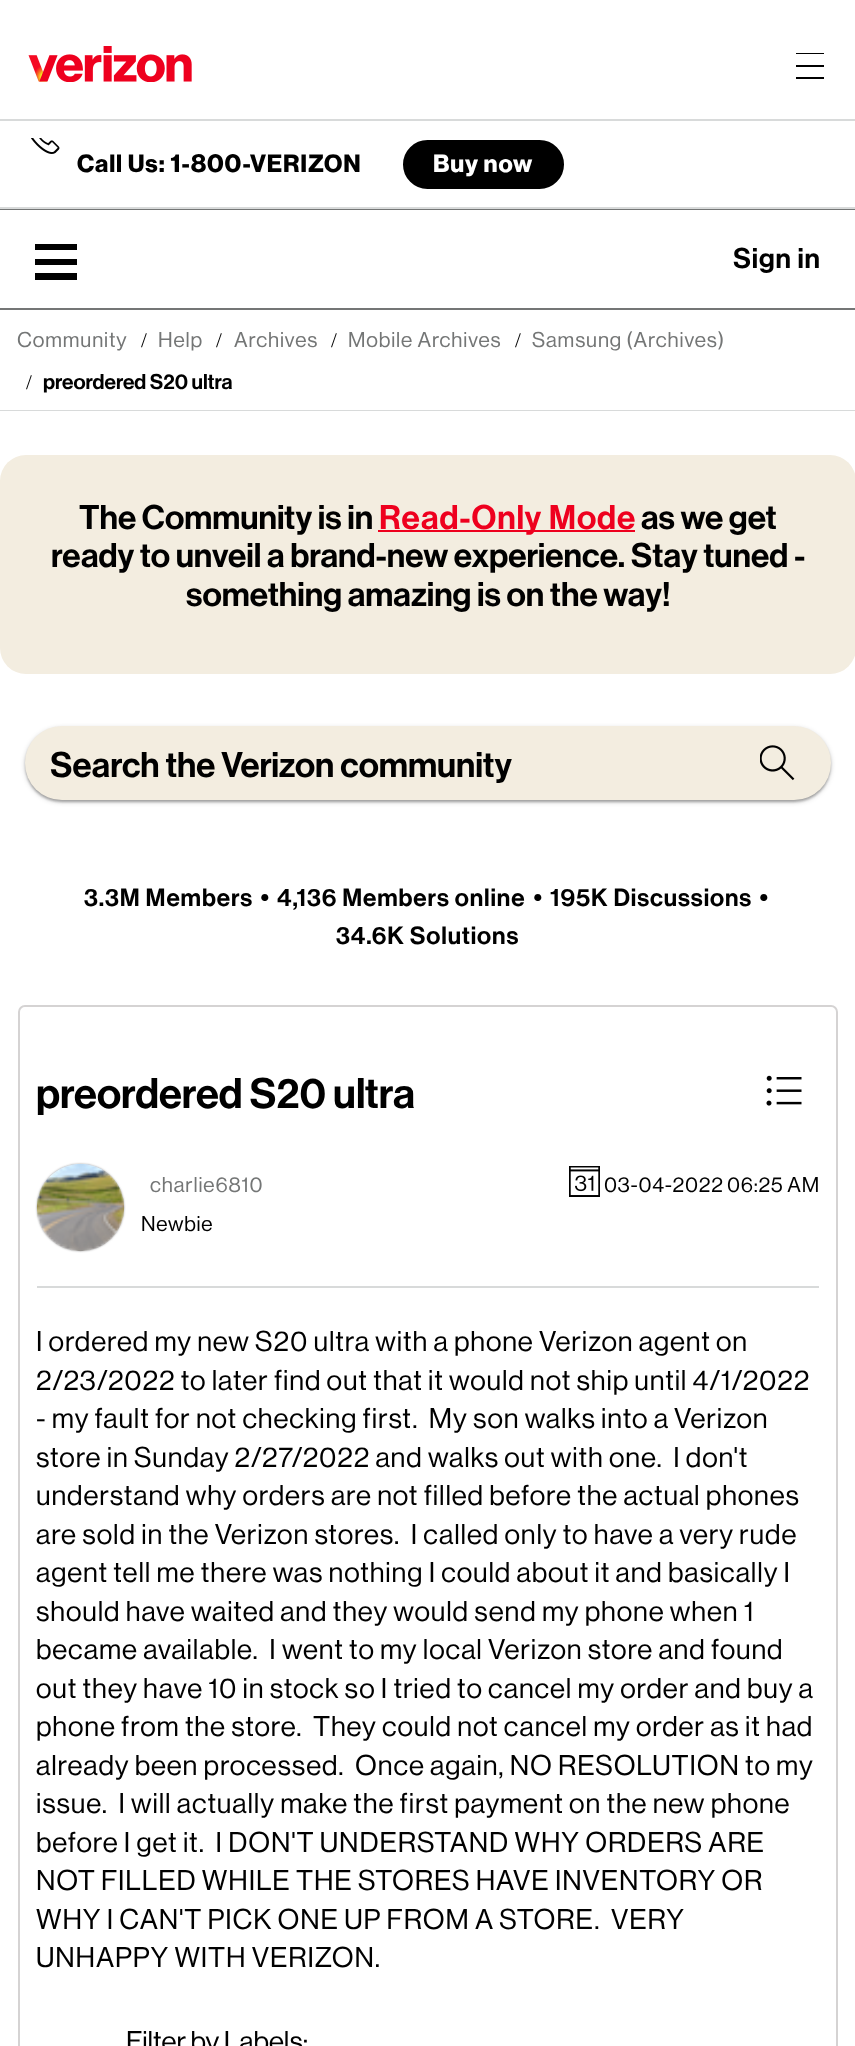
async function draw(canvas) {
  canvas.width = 855
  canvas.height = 2046
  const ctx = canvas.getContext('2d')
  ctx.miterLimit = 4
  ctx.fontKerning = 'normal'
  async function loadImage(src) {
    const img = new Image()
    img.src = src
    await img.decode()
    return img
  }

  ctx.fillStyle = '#fff'
  ctx.fillRect(0, 0, 855, 2046)
  ctx.fillStyle = '#d8dada'
  ctx.fillRect(0, 207, 855, 2)
  ctx.drawImage(await loadImage('image0.png'), 28, 46, 164, 36)
  ctx.fillStyle = '#000'
  ctx.fillRect(796, 53, 28, 1)
  ctx.fillRect(796, 77, 28, 2)
  ctx.fillRect(796, 65, 28, 2)
  ctx.fillStyle = '#d8dada'
  ctx.fillRect(0, 119, 855, 2)
  ctx.drawImage(await loadImage('image1.png'), 31, 138, 29, 16)
  ctx.letterSpacing = '0.88px'
  ctx.font = 'bold 24.5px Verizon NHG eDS'
  ctx.fillStyle = '#000'
  ctx.fillText('Call Us: 1-800-VERIZON', 77, 172)
  ctx.beginPath()
  ctx.roundRect(404, 141, 159, 47, 23.5)
  ctx.fill()
  ctx.strokeStyle = '#000'
  ctx.lineWidth = 2
  ctx.stroke()
  ctx.fillStyle = '#fff'
  ctx.fillText('Buy now', 433, 172)
  ctx.fillStyle = '#747676'
  ctx.fillRect(0, 209, 855, 1)
  ctx.fillStyle = '#000'
  ctx.beginPath()
  ctx.moveTo(35, 244)
  ctx.lineTo(77, 244)
  ctx.lineTo(77, 250)
  ctx.lineTo(35, 250)
  ctx.closePath()
  ctx.moveTo(35, 259)
  ctx.lineTo(77, 259)
  ctx.lineTo(77, 265)
  ctx.lineTo(35, 265)
  ctx.closePath()
  ctx.moveTo(35, 273)
  ctx.lineTo(77, 273)
  ctx.lineTo(77, 280)
  ctx.lineTo(35, 280)
  ctx.closePath()
  ctx.fill('evenodd')
  ctx.font = '500 28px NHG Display'
  ctx.fillText('Sign in', 733, 268)
  ctx.fillStyle = '#d8dada'
  ctx.fillRect(0, 410, 855, 1)
  ctx.fillStyle = '#747676'
  ctx.fillRect(0, 308, 855, 2)
  ctx.font = '21px NHG Display'
  ctx.fillText('Community', 17, 347)
  ctx.letterSpacing = '0px'
  ctx.font = '21px Liberation Serif'
  ctx.fillStyle = '#000'
  ctx.fillText('/', 141, 347)
  ctx.letterSpacing = '0.88px'
  ctx.font = '21px NHG Display'
  ctx.fillStyle = '#747676'
  ctx.fillText('Help', 158, 347)
  ctx.letterSpacing = '0px'
  ctx.font = '21px Liberation Serif'
  ctx.fillStyle = '#000'
  ctx.fillText('/', 216, 347)
  ctx.letterSpacing = '0.88px'
  ctx.font = '21px NHG Display'
  ctx.fillStyle = '#747676'
  ctx.fillText('Archives', 234, 347)
  ctx.letterSpacing = '0px'
  ctx.font = '21px Liberation Serif'
  ctx.fillStyle = '#000'
  ctx.fillText('/', 331, 347)
  ctx.letterSpacing = '0.88px'
  ctx.font = '21px NHG Display'
  ctx.fillStyle = '#747676'
  ctx.fillText('Mobile Archives', 348, 347)
  ctx.letterSpacing = '0px'
  ctx.font = '21px Liberation Serif'
  ctx.fillStyle = '#000'
  ctx.fillText('/', 515, 347)
  ctx.letterSpacing = '0.88px'
  ctx.font = '21px NHG Display'
  ctx.fillStyle = '#747676'
  ctx.fillText('Samsung (Archives)', 532, 347)
  ctx.letterSpacing = '0px'
  ctx.font = '21px Liberation Serif'
  ctx.fillStyle = '#000'
  ctx.fillText('/', 26, 389)
  ctx.font = '500 21px NHG Display'
  ctx.fillText('preordered S20 ultra', 43, 389)
  ctx.fillStyle = '#f3ede0'
  ctx.beginPath()
  ctx.roundRect(0, 455, 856, 219, 26)
  ctx.fill()
  ctx.font = '500 33.6px NHG Display'
  ctx.fillStyle = '#000'
  ctx.fillText('The Community is in', 79, 529)
  ctx.fillStyle = '#ee001e'
  ctx.fillRect(378, 530, 257, 2)
  ctx.letterSpacing = '0.88px'
  ctx.fillText('Read-Only Mode', 379, 529)
  ctx.letterSpacing = '0px'
  ctx.fillStyle = '#000'
  ctx.fillText('as we get', 641, 529)
  ctx.fillText('ready to unveil a brand-new experience. Stay tuned -', 51, 567)
  ctx.fillText('something amazing is on the way!', 186, 606)
  ctx.fillStyle = '#0000001f'
  ctx.filter = 'blur(1px)'
  ctx.beginPath()
  ctx.roundRect(26, 732, 804, 70, 35)
  ctx.fill()
  ctx.filter = 'none'
  ctx.fillStyle = '#00000024'
  ctx.filter = 'blur(1px)'
  ctx.beginPath()
  ctx.roundRect(25, 728, 806, 74, 37)
  ctx.fill()
  ctx.filter = 'none'
  ctx.fillStyle = '#00000033'
  ctx.filter = 'blur(2.5px)'
  ctx.beginPath()
  ctx.roundRect(25, 728, 806, 74, 37)
  ctx.fill()
  ctx.filter = 'none'
  ctx.fillStyle = '#f3ede0'
  ctx.beginPath()
  ctx.roundRect(25, 726, 806, 74, 37)
  ctx.fill()
  ctx.font = '500 35px NHG Display'
  ctx.fillStyle = '#000'
  ctx.fillText('Search the Verizon community', 50, 777)
  ctx.drawImage(await loadImage('image2.png'), 760, 745, 35, 36)
  ctx.letterSpacing = '0.88px'
  ctx.font = '500 24.5px NHG Display'
  ctx.fillText('3.3M Members', 84, 906)
  ctx.letterSpacing = '0px'
  ctx.font = '28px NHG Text'
  ctx.fillText('•', 260, 907)
  ctx.letterSpacing = '0.88px'
  ctx.font = '500 24.5px NHG Display'
  ctx.fillText('4,136 Members online', 277, 906)
  ctx.letterSpacing = '0px'
  ctx.font = '28px NHG Text'
  ctx.fillText('•', 533, 907)
  ctx.letterSpacing = '0.88px'
  ctx.font = '500 24.5px NHG Display'
  ctx.fillText('195K Discussions', 550, 906)
  ctx.letterSpacing = '0px'
  ctx.font = '28px NHG Text'
  ctx.fillText('•', 759, 907)
  ctx.letterSpacing = '0.88px'
  ctx.font = '500 24.5px NHG Display'
  ctx.fillText('34.6K Solutions', 336, 944)
  ctx.beginPath()
  ctx.roundRect(19, 1006, 818, 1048, 6)
  ctx.strokeStyle = '#d5d3d3'
  ctx.stroke()
  ctx.letterSpacing = '0px'
  ctx.font = '500 42px NHG Display'
  ctx.fillText('preordered S20 ultra', 36, 1108)
  ctx.drawImage(await loadImage('image3.png'), 766, 1075, 36, 31)
  ctx.fillStyle = '#d8dada'
  ctx.fillRect(37, 1286, 782, 2)
  ctx.save()
  ctx.beginPath()
  ctx.moveTo(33, 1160)
  ctx.lineTo(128, 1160)
  ctx.lineTo(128, 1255)
  ctx.lineTo(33, 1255)
  ctx.closePath()
  ctx.moveTo(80.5, 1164)
  ctx.bezierCurveTo(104.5, 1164, 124, 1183.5, 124, 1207.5)
  ctx.bezierCurveTo(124, 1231.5, 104.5, 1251, 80.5, 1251)
  ctx.bezierCurveTo(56.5, 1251, 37, 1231.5, 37, 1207.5)
  ctx.bezierCurveTo(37, 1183.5, 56.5, 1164, 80.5, 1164)
  ctx.closePath()
  ctx.clip('evenodd')
  ctx.fillStyle = '#999'
  ctx.filter = 'blur(1px)'
  ctx.beginPath()
  ctx.roundRect(37, 1164, 87, 87, 43.5)
  ctx.fill()
  ctx.filter = 'none'
  ctx.restore()
  ctx.drawImage(await loadImage('image4.png'), 36, 1164, 89, 88)
  ctx.letterSpacing = '0.88px'
  ctx.font = '21px NHG Display'
  ctx.fillStyle = '#747676'
  ctx.fillText('charlie6810', 150, 1192)
  ctx.letterSpacing = '0.75px'
  ctx.fillStyle = '#000'
  ctx.fillText('Newbie', 141, 1231)
  ctx.drawImage(await loadImage('image5.png'), 569, 1166, 31, 31)
  ctx.fillText('03-04-2022', 604, 1192)
  ctx.fillText('06:25 AM', 727, 1192)
  ctx.letterSpacing = '0.88px'
  ctx.font = '28px NHG Display'
  ctx.fillText('I ordered my new S20 ultra with a phone Verizon agent on', 36, 1351)
  ctx.fillText('2/23/2022 to later find out that it would not ship until 4/1/2022', 36, 1390)
  ctx.fillText('- my fault for not checking first.  My son walks into a Verizon', 36, 1428)
  ctx.fillText('store in Sunday 2/27/2022 and walks out with one.  I don\'t', 36, 1467)
  ctx.fillText('understand why orders are not filled before the actual phones', 36, 1505)
  ctx.fillText('are sold in the Verizon stores.  I called only to have a very rude', 36, 1544)
  ctx.fillText('agent tell me there was nothing I could about it and basically I', 36, 1582)
  ctx.fillText('should have waited and they would send my phone when 1', 36, 1621)
  ctx.fillText('became available.  I went to my local Verizon store and found', 36, 1659)
  ctx.fillText('out they have 10 in stock so I tried to cancel my order and buy a', 36, 1698)
  ctx.fillText('phone from the store.  They could not cancel my order as it had', 36, 1736)
  ctx.fillText('already been processed.  Once again, NO RESOLUTION to my', 36, 1775)
  ctx.fillText('issue.  I will actually make the first payment on the new phone', 36, 1813)
  ctx.fillText('before I get it.  I DON\'T UNDERSTAND WHY ORDERS ARE', 36, 1852)
  ctx.fillText('NOT FILLED WHILE THE STORES HAVE INVENTORY OR', 36, 1890)
  ctx.fillText('WHY I CAN\'T PICK ONE UP FROM A STORE.  VERY', 36, 1929)
  ctx.fillText('UNHAPPY WITH VERIZON.', 36, 1967)
  ctx.letterSpacing = '0px'
  ctx.fillText('Filter by Labels:', 126, 2051)
}

draw(document.querySelector('canvas'))
